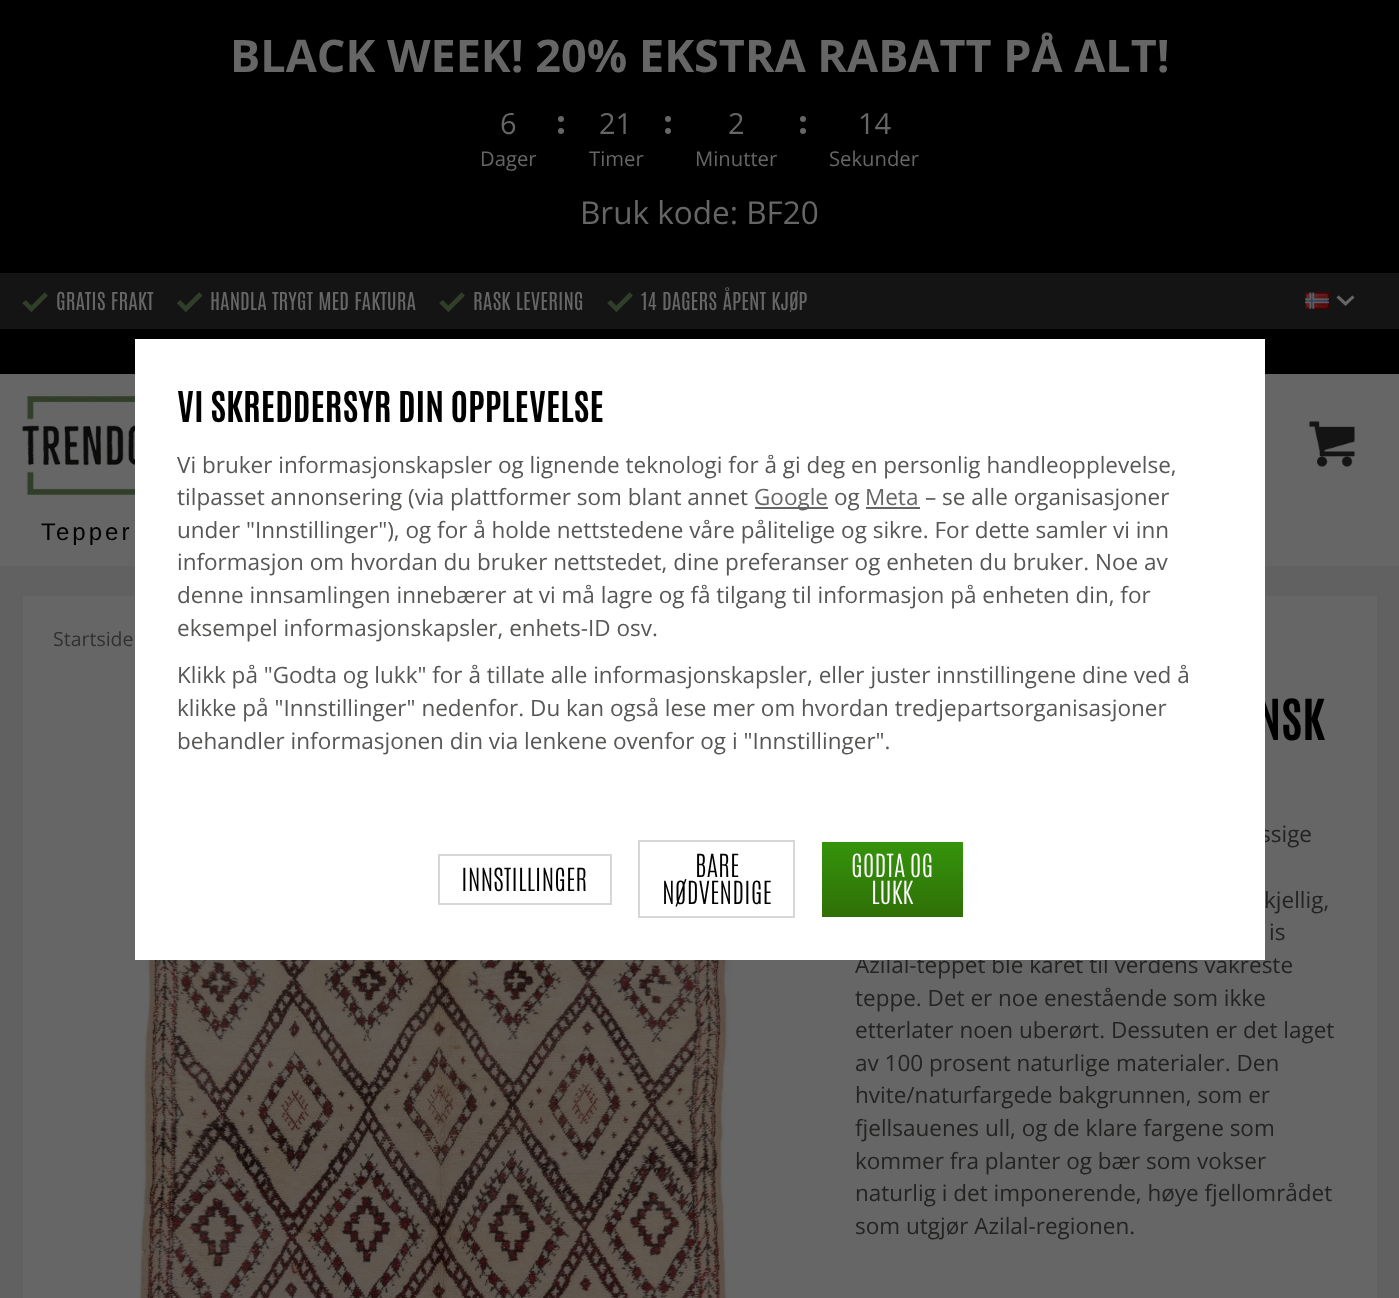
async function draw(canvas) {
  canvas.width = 1399
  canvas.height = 1298
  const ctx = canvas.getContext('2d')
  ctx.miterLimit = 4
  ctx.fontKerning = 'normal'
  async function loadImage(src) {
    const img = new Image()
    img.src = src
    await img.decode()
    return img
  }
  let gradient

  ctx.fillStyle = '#616161'
  ctx.fillRect(0, 0, 1399, 1298)
  ctx.fillStyle = '#141414'
  ctx.fillRect(0, 273, 1399, 56)
  ctx.fillStyle = '#000'
  ctx.fillRect(0, 0, 1399, 273)
  ctx.font = 'bold 45px Open Sans'
  ctx.fillStyle = '#666'
  ctx.fillText('BLACK WEEK! 20% EKSTRA RABATT PÅ ALT!', 230, 72)
  ctx.font = '29px Open Sans'
  ctx.fillText('6', 500, 134)
  ctx.font = '20.25px Open Sans'
  ctx.fillText('Dager', 480, 166)
  ctx.beginPath()
  ctx.arc(561, 119, 3, 0, 2 * Math.PI)
  ctx.fill()
  ctx.beginPath()
  ctx.arc(561, 131, 3, 0, 2 * Math.PI)
  ctx.fill()
  ctx.font = '29px Open Sans'
  ctx.fillText('21', 599, 134)
  ctx.font = '20.25px Open Sans'
  ctx.fillText('Timer', 589, 166)
  ctx.beginPath()
  ctx.arc(668, 119, 3, 0, 2 * Math.PI)
  ctx.fill()
  ctx.beginPath()
  ctx.arc(668, 131, 3, 0, 2 * Math.PI)
  ctx.fill()
  ctx.font = '29px Open Sans'
  ctx.fillText('2', 728, 134)
  ctx.font = '20.25px Open Sans'
  ctx.fillText('Minutter', 695, 166)
  ctx.beginPath()
  ctx.arc(803, 119, 3, 0, 2 * Math.PI)
  ctx.fill()
  ctx.beginPath()
  ctx.arc(803, 131, 3, 0, 2 * Math.PI)
  ctx.fill()
  ctx.font = '29px Open Sans'
  ctx.fillText('14', 858, 134)
  ctx.font = '20.25px Open Sans'
  ctx.fillText('Sekunder', 829, 166)
  ctx.font = '31.5px Open Sans'
  ctx.fillText('Bruk kode: BF20', 580, 224)
  ctx.drawImage(await loadImage('image0.png'), 22, 292, 26, 20)
  ctx.font = '21px Antonio'
  ctx.fillText('GRATIS FRAKT', 56, 310)
  ctx.drawImage(await loadImage('image1.png'), 177, 292, 26, 20)
  ctx.fillText('HANDLA TRYGT MED FAKTURA', 210, 310)
  ctx.drawImage(await loadImage('image2.png'), 439, 292, 26, 20)
  ctx.fillText('RASK LEVERING', 473, 310)
  ctx.drawImage(await loadImage('image2.png'), 607, 292, 26, 20)
  ctx.fillText('14 DAGERS ÅPENT KJØP', 641, 310)
  ctx.drawImage(await loadImage('image3.png'), 1305, 292, 24, 17)
  ctx.drawImage(await loadImage('image4.png'), 1336, 295, 19, 11)
  ctx.fillStyle = '#000'
  ctx.fillRect(0, 329, 1399, 45)
  ctx.fillStyle = '#666'
  ctx.fillRect(0, 374, 1399, 192)
  ctx.drawImage(await loadImage('image5.png'), 22, 396, 113, 99)
  ctx.drawImage(await loadImage('image6.png'), 1309, 421, 46, 46)
  ctx.letterSpacing = '3px'
  ctx.font = '24px Liberation Sans'
  ctx.fillStyle = '#000'
  ctx.fillText('Tepper', 41, 540)
  ctx.fillStyle = '#666'
  ctx.fillRect(23, 596, 1354, 702)
  ctx.letterSpacing = '0px'
  ctx.font = '19.5px Open Sans'
  ctx.fillStyle = '#303030'
  ctx.fillText('Startside', 53, 646)
  ctx.drawImage(await loadImage('image7.png'), 134, 720, 598, 578)
  ctx.font = 'bold 48px Antonio'
  ctx.fillStyle = '#000'
  ctx.fillText('NSK', 1256, 740)
  ctx.font = '22.5px Open Sans'
  ctx.fillStyle = '#232322'
  ctx.fillText('ssige', 1260, 842)
  ctx.fillText('kjellig,', 1264, 908)
  ctx.fillText('is', 1269, 940)
  ctx.fillText('Azilal-teppet ble kåret til verdens vakreste', 855, 973)
  ctx.fillText('teppe. Det er noe enestående som ikke', 855, 1006)
  ctx.fillText('etterlater noen uberørt. Dessuten er det laget', 855, 1038)
  ctx.fillText('av 100 prosent naturlige materialer. Den', 855, 1071)
  ctx.fillText('hvite/naturfargede bakgrunnen, som er', 855, 1103)
  ctx.fillText('fjellsauenes ull, og de klare fargene som', 855, 1136)
  ctx.fillText('kommer fra planter og bær som vokser', 855, 1169)
  ctx.fillText('naturlig i det imponerende, høye fjellområdet', 855, 1201)
  ctx.fillText('som utgjør Azilal-regionen.', 855, 1234)
  ctx.fillStyle = '#fff'
  ctx.fillRect(135, 339, 1130, 621)
  ctx.font = 'bold 36px Antonio'
  ctx.fillStyle = '#000'
  ctx.fillText('VI SKREDDERSYR DIN OPPLEVELSE', 177, 422)
  ctx.font = '22.5px Open Sans'
  ctx.fillStyle = '#575756'
  ctx.fillText('Vi bruker informasjonskapsler og lignende teknologi for å gi deg en personlig handleopplevelse,', 177, 473)
  ctx.fillText('tilpasset annonsering (via plattformer som blant annet', 177, 505)
  ctx.fillStyle = '#666'
  ctx.fillRect(755, 507, 73, 2)
  ctx.fillText('Google', 754, 505)
  ctx.fillStyle = '#575756'
  ctx.fillText('og', 834, 505)
  ctx.fillStyle = '#666'
  ctx.fillText('Meta', 865, 505)
  ctx.fillRect(866, 507, 54, 2)
  ctx.fillStyle = '#575756'
  ctx.fillText('– se alle organisasjoner', 925, 505)
  ctx.fillText('under "Innstillinger"), og for å holde nettstedene våre pålitelige og sikre. For dette samler vi inn', 177, 538)
  ctx.fillText('informasjon om hvordan du bruker nettstedet, dine preferanser og enheten du bruker. Noe av', 177, 570)
  ctx.fillText('denne innsamlingen innebærer at vi må lagre og få tilgang til informasjon på enheten din, for', 177, 603)
  ctx.fillText('eksempel informasjonskapsler, enhets-ID osv.', 177, 636)
  ctx.fillText('Klikk på "Godta og lukk" for å tillate alle informasjonskapsler, eller juster innstillingene dine ved å', 177, 683)
  ctx.fillText('klikke på "Innstillinger" nedenfor. Du kan også lese mer om hvordan tredjepartsorganisasjoner', 177, 716)
  ctx.fillText('behandler informasjonen din via lenkene ovenfor og i "Innstillinger".', 177, 749)
  ctx.strokeStyle = '#d7d7d7'
  ctx.lineWidth = 2
  ctx.strokeRect(439, 855, 172, 49)
  ctx.font = '300 27px Antonio'
  ctx.fillStyle = '#000'
  ctx.fillText('INNSTILLINGER', 461, 891)
  ctx.strokeRect(639, 841, 155, 76)
  ctx.fillText('BARE', 695, 877)
  ctx.fillText('NØDVENDIGE', 662, 904)
  gradient = ctx.createLinearGradient(893, 842, 893, 917)
  gradient.addColorStop(0, '#34940b')
  gradient.addColorStop(1, '#306f07')
  ctx.fillStyle = gradient
  ctx.fillRect(822, 842, 141, 75)
  ctx.fillStyle = '#fff'
  ctx.fillText('GODTA OG', 851, 877)
  ctx.fillText('LUKK', 871, 904)
}

draw(document.querySelector('canvas'))
